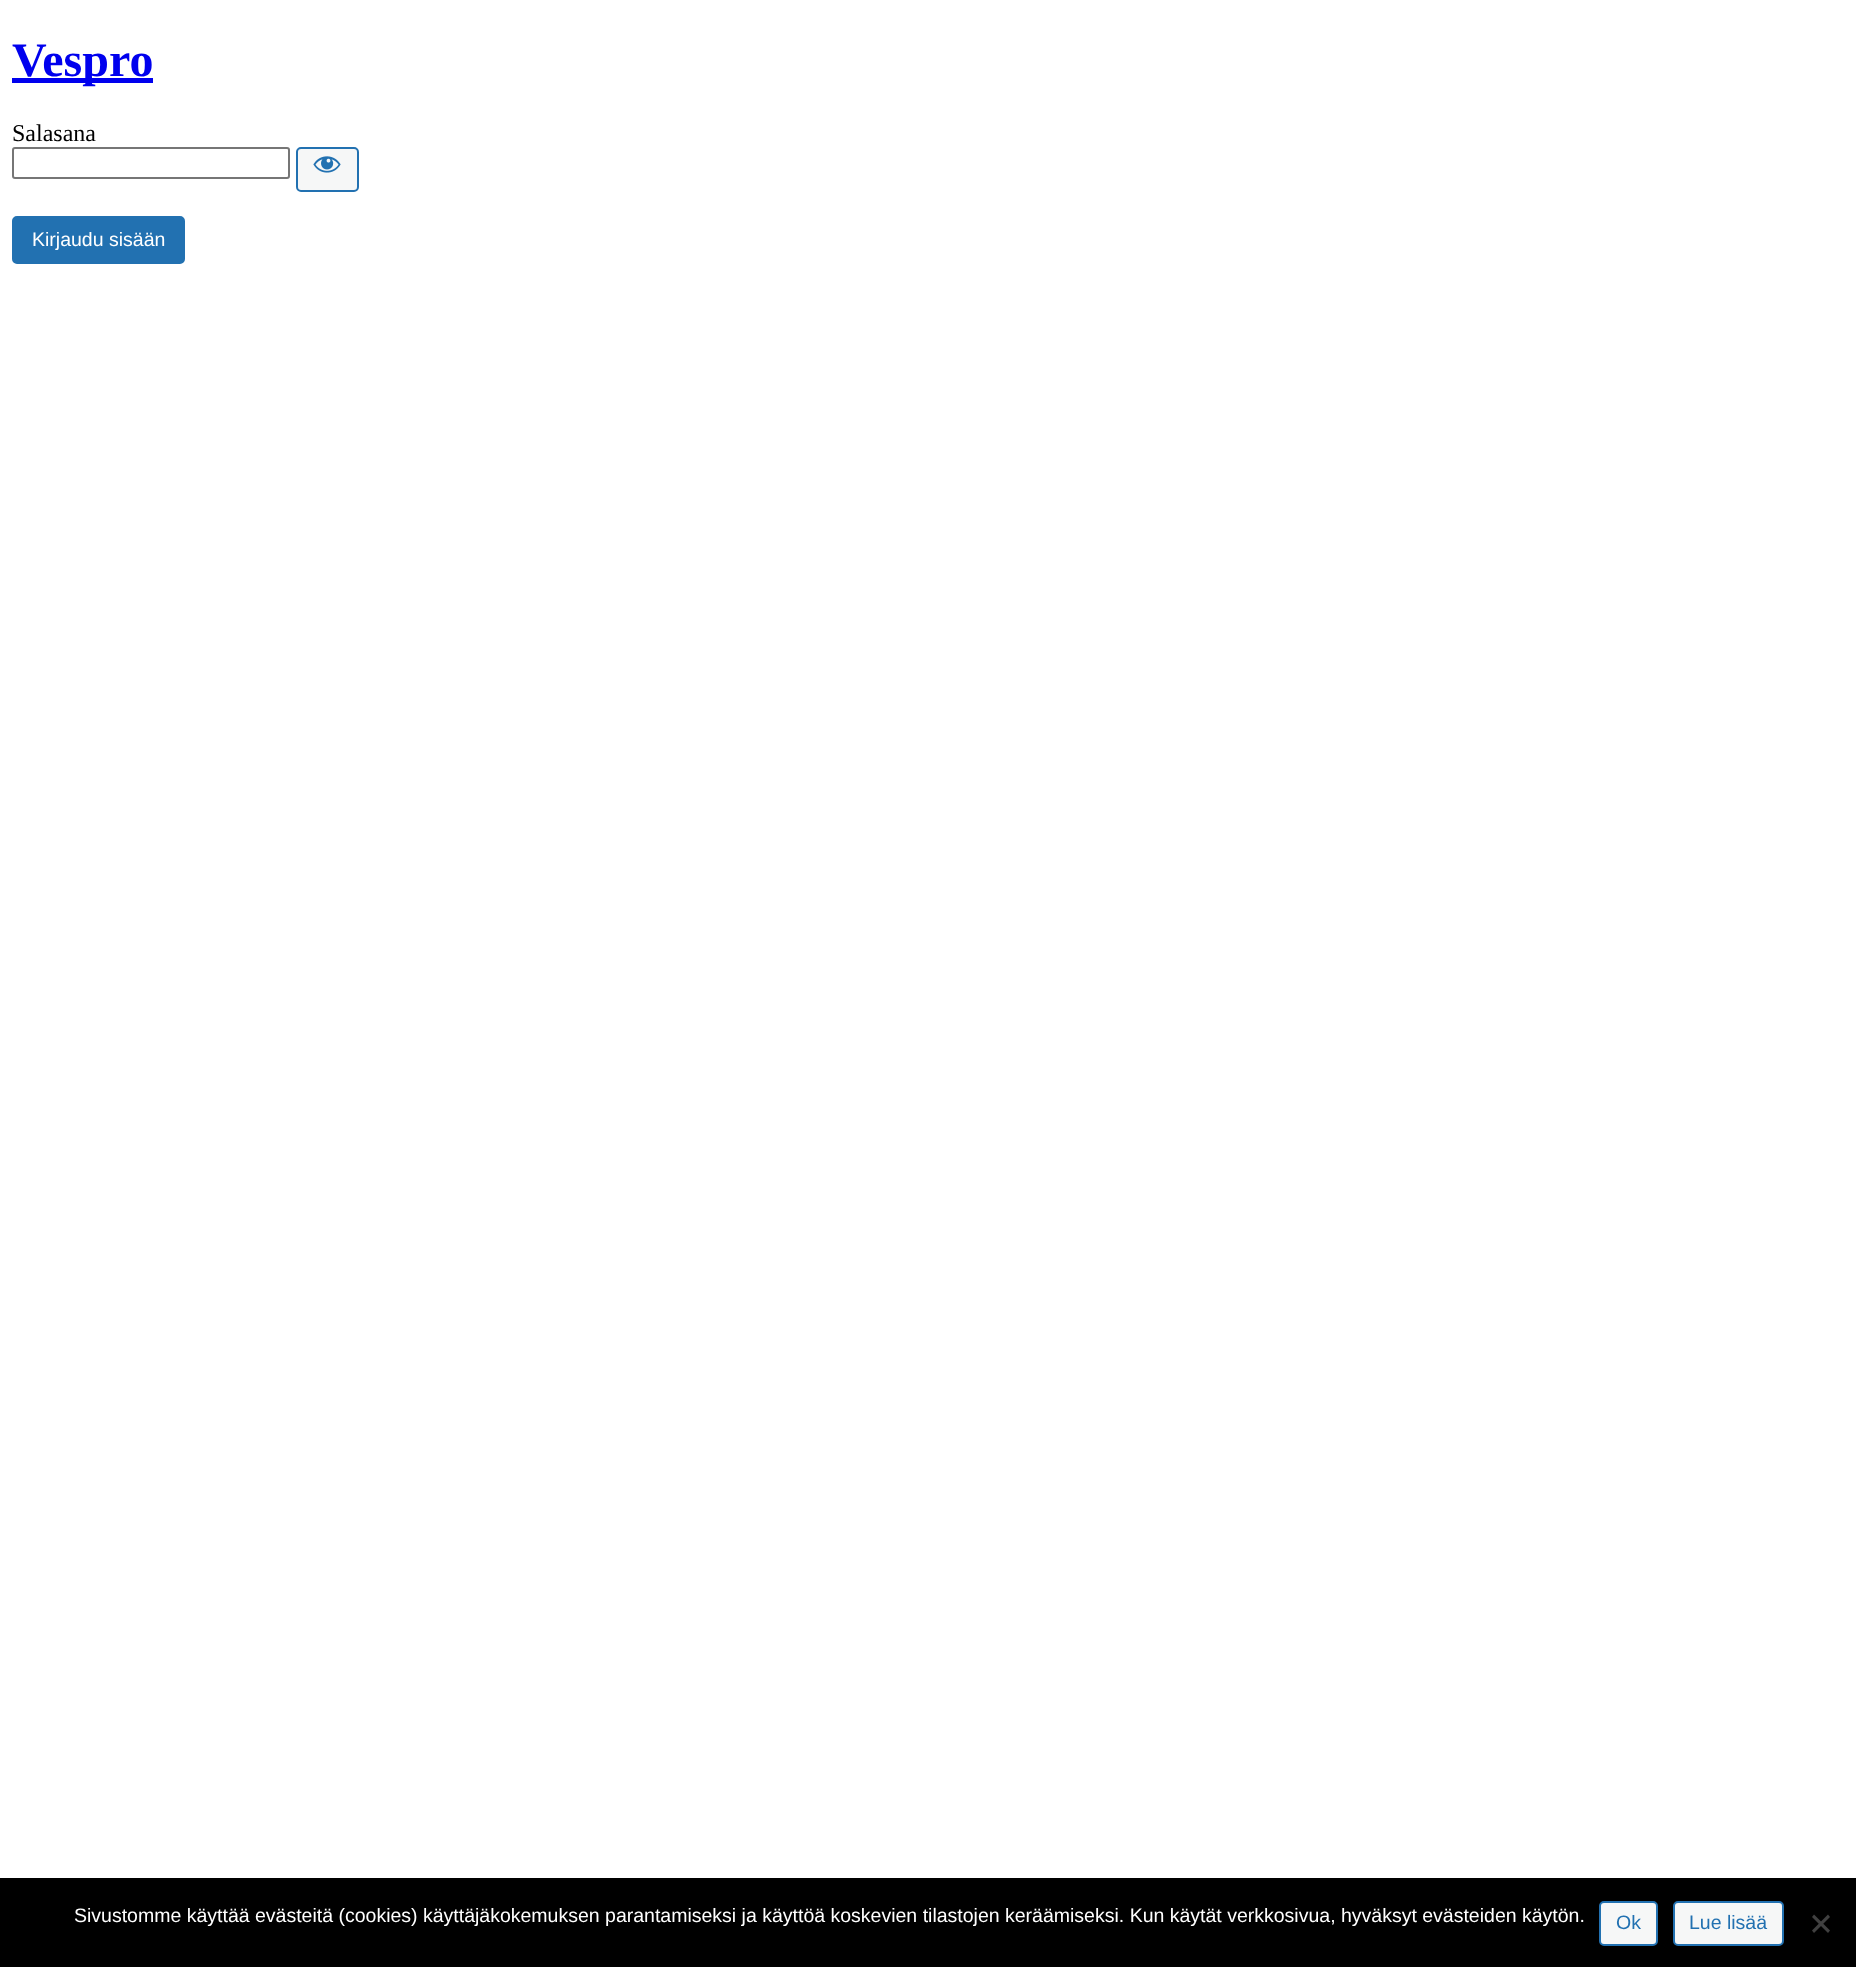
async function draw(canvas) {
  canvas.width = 1856
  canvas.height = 1967
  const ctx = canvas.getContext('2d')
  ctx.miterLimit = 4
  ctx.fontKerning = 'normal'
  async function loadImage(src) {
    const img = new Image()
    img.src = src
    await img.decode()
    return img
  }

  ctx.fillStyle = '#fff'
  ctx.fillRect(0, 0, 1856, 1967)
  ctx.fillStyle = '#00e'
  ctx.fillRect(12, 78, 141, 5)
  ctx.font = 'bold 48px Liberation Serif'
  ctx.fillText('Vespro', 12, 76)
  ctx.font = '24px Liberation Serif'
  ctx.fillStyle = '#000'
  ctx.fillText('Salasana', 12, 141)
  ctx.beginPath()
  ctx.roundRect(13, 148, 276, 30, 2)
  ctx.strokeStyle = '#767676'
  ctx.lineWidth = 2
  ctx.stroke()
  ctx.fillStyle = '#f6f7f7'
  ctx.beginPath()
  ctx.roundRect(297, 148, 61, 43, 4)
  ctx.fill()
  ctx.strokeStyle = '#2271b1'
  ctx.stroke()
  ctx.drawImage(await loadImage('image0.png'), 313, 156, 28, 17)
  ctx.fillStyle = '#2271b1'
  ctx.beginPath()
  ctx.roundRect(13, 217, 171, 46, 4)
  ctx.fill()
  ctx.stroke()
  ctx.font = '19.5px Liberation Sans'
  ctx.fillStyle = '#fff'
  ctx.fillText('Kirjaudu sisään', 32, 246)
  ctx.fillStyle = '#000'
  ctx.fillRect(0, 1878, 1856, 89)
  ctx.fillStyle = '#fff'
  ctx.fillText('Sivustomme käyttää evästeitä (cookies) käyttäjäkokemuksen parantamiseksi ja käyttöä koskevien tilastojen keräämiseksi. Kun käytät verkkosivua, hyväksyt evästeiden käytön.', 74, 1922)
  ctx.fillStyle = '#f6f7f7'
  ctx.beginPath()
  ctx.roundRect(1600, 1902, 57, 43, 4)
  ctx.fill()
  ctx.stroke()
  ctx.fillStyle = '#2271b1'
  ctx.fillText('Ok', 1616, 1929)
  ctx.fillStyle = '#f6f7f7'
  ctx.beginPath()
  ctx.roundRect(1674, 1902, 109, 43, 4)
  ctx.fill()
  ctx.stroke()
  ctx.fillStyle = '#2271b1'
  ctx.fillText('Lue lisää', 1689, 1929)
  ctx.fillStyle = '#404040'
  ctx.beginPath()
  ctx.moveTo(1828, 1914.5)
  ctx.lineTo(1830, 1917)
  ctx.lineTo(1814, 1933)
  ctx.lineTo(1812, 1930.5)
  ctx.closePath()
  ctx.fill()
  ctx.beginPath()
  ctx.moveTo(1812, 1917)
  ctx.lineTo(1814, 1914.5)
  ctx.lineTo(1830, 1930.5)
  ctx.lineTo(1828, 1933)
  ctx.closePath()
  ctx.fill()
}

draw(document.querySelector('canvas'))
